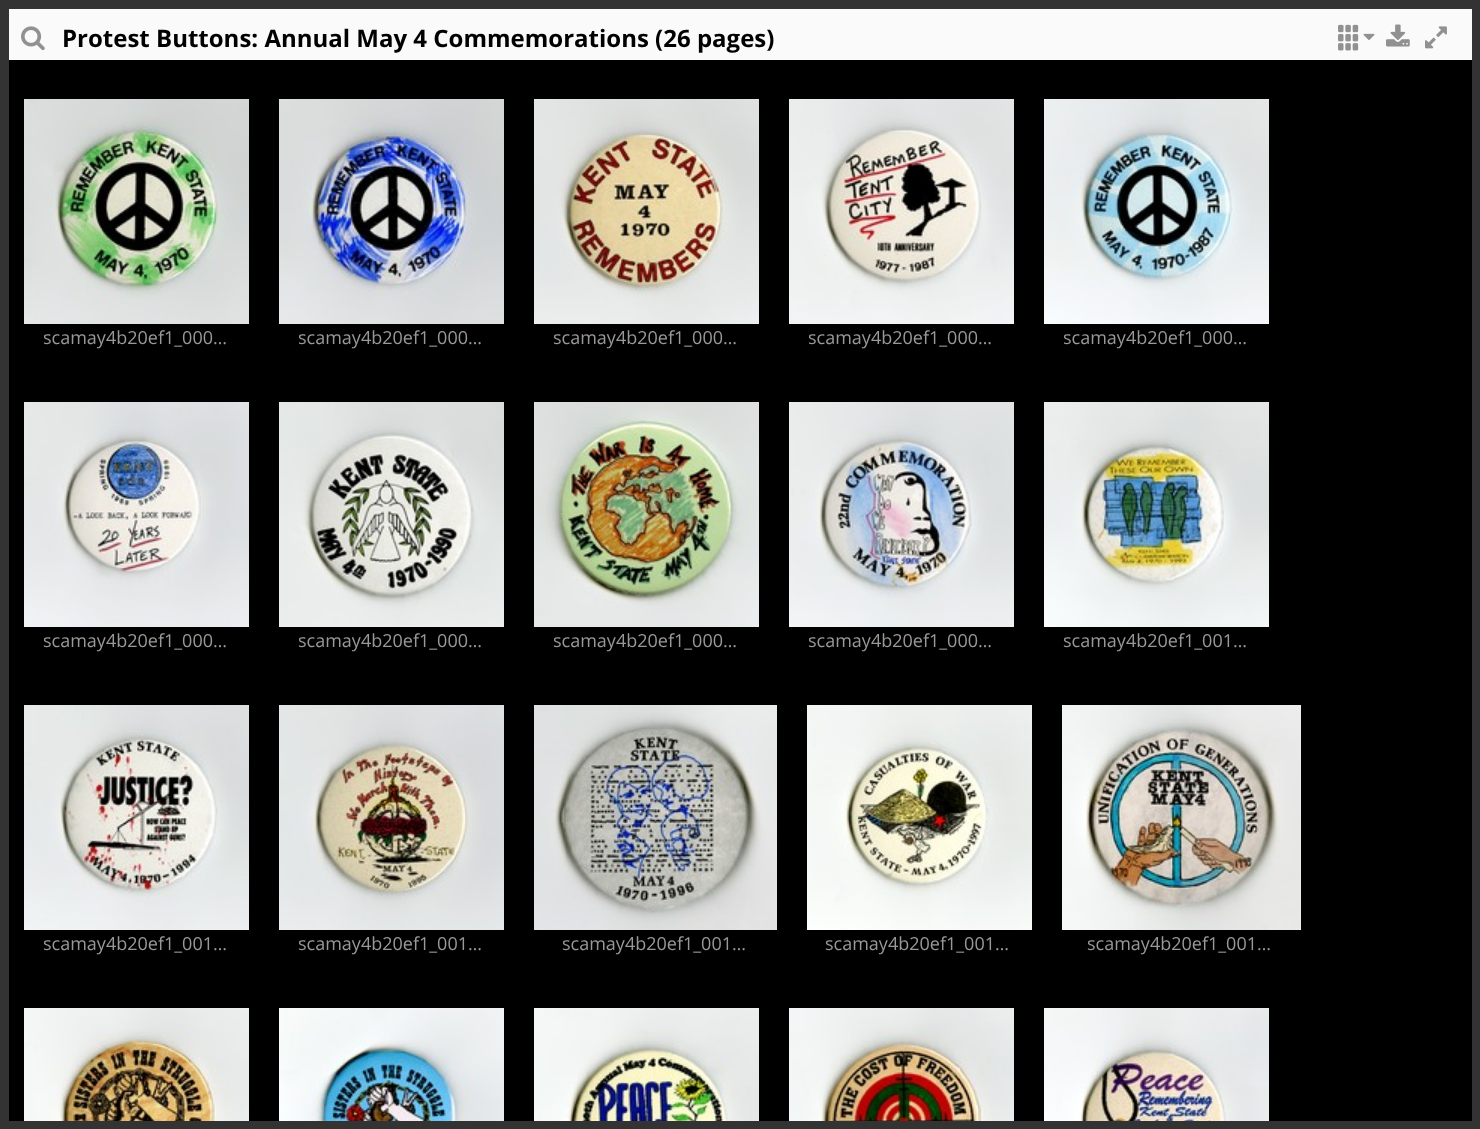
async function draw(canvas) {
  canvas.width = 1480
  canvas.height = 1129
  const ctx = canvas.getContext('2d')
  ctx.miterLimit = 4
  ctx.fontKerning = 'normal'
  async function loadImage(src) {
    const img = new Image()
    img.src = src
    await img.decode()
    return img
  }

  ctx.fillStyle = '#333'
  ctx.fillRect(0, 0, 1480, 1129)
  ctx.fillStyle = '#fafafa'
  ctx.fillRect(9, 9, 1463, 51)
  ctx.drawImage(await loadImage('image0.png'), 21, 26, 24, 25)
  ctx.font = 'bold 24px Open Sans'
  ctx.fillStyle = '#000'
  ctx.fillText('Protest Buttons: Annual May 4 Commemorations (26 pages)', 62, 47)
  ctx.drawImage(await loadImage('image1.png'), 1338, 24, 21, 27)
  ctx.drawImage(await loadImage('image2.png'), 1363, 33, 12, 7)
  ctx.drawImage(await loadImage('image3.png'), 1386, 24, 24, 23)
  ctx.drawImage(await loadImage('image4.png'), 1425, 26, 22, 23)
  ctx.fillRect(9, 60, 1463, 1061)
  ctx.drawImage(await loadImage('image5.png'), 24, 99, 225, 225)
  ctx.save()
  ctx.beginPath()
  ctx.rect(44, 324, 187, 26)
  ctx.clip()
  ctx.font = '18px Open Sans'
  ctx.fillStyle = '#999'
  ctx.fillText('scamay4b20ef1_000…', 43, 344)
  ctx.restore()
  ctx.drawImage(await loadImage('image6.png'), 279, 99, 225, 225)
  ctx.save()
  ctx.beginPath()
  ctx.rect(299, 324, 187, 26)
  ctx.clip()
  ctx.font = '18px Open Sans'
  ctx.fillStyle = '#999'
  ctx.fillText('scamay4b20ef1_000…', 298, 344)
  ctx.restore()
  ctx.drawImage(await loadImage('image7.png'), 534, 99, 225, 225)
  ctx.save()
  ctx.beginPath()
  ctx.rect(554, 324, 187, 26)
  ctx.clip()
  ctx.font = '18px Open Sans'
  ctx.fillStyle = '#999'
  ctx.fillText('scamay4b20ef1_000…', 553, 344)
  ctx.restore()
  ctx.drawImage(await loadImage('image8.png'), 789, 99, 225, 225)
  ctx.save()
  ctx.beginPath()
  ctx.rect(809, 324, 187, 26)
  ctx.clip()
  ctx.font = '18px Open Sans'
  ctx.fillStyle = '#999'
  ctx.fillText('scamay4b20ef1_000…', 808, 344)
  ctx.restore()
  ctx.drawImage(await loadImage('image9.png'), 1044, 99, 225, 225)
  ctx.save()
  ctx.beginPath()
  ctx.rect(1064, 324, 187, 26)
  ctx.clip()
  ctx.font = '18px Open Sans'
  ctx.fillStyle = '#999'
  ctx.fillText('scamay4b20ef1_000…', 1063, 344)
  ctx.restore()
  ctx.drawImage(await loadImage('image10.png'), 24, 402, 225, 225)
  ctx.font = '18px Open Sans'
  ctx.fillStyle = '#999'
  ctx.fillText('scamay4b20ef1_000…', 43, 647)
  ctx.fillStyle = '#eee'
  ctx.fillRect(279, 625, 225, 2)
  ctx.drawImage(await loadImage('image11.png'), 279, 402, 225, 223)
  ctx.fillStyle = '#999'
  ctx.fillText('scamay4b20ef1_000…', 298, 647)
  ctx.drawImage(await loadImage('image12.png'), 534, 402, 225, 225)
  ctx.fillText('scamay4b20ef1_000…', 553, 647)
  ctx.drawImage(await loadImage('image13.png'), 789, 402, 225, 225)
  ctx.fillText('scamay4b20ef1_000…', 808, 647)
  ctx.drawImage(await loadImage('image14.png'), 1044, 402, 225, 225)
  ctx.fillText('scamay4b20ef1_001…', 1063, 647)
  ctx.drawImage(await loadImage('image15.png'), 24, 705, 225, 225)
  ctx.fillText('scamay4b20ef1_001…', 43, 950)
  ctx.drawImage(await loadImage('image16.png'), 279, 705, 225, 225)
  ctx.fillText('scamay4b20ef1_001…', 298, 950)
  ctx.drawImage(await loadImage('image17.png'), 534, 705, 243, 225)
  ctx.fillText('scamay4b20ef1_001…', 562, 950)
  ctx.drawImage(await loadImage('image18.png'), 807, 705, 225, 225)
  ctx.fillText('scamay4b20ef1_001…', 825, 950)
  ctx.fillStyle = '#eee'
  ctx.fillRect(1300, 705, 1, 225)
  ctx.drawImage(await loadImage('image19.png'), 1062, 705, 239, 225)
  ctx.fillStyle = '#999'
  ctx.fillText('scamay4b20ef1_001…', 1087, 950)
  ctx.drawImage(await loadImage('image20.png'), 24, 1008, 225, 113)
  ctx.drawImage(await loadImage('image21.png'), 279, 1008, 225, 113)
  ctx.drawImage(await loadImage('image22.png'), 534, 1008, 225, 113)
  ctx.drawImage(await loadImage('image23.png'), 789, 1008, 225, 113)
  ctx.drawImage(await loadImage('image24.png'), 1044, 1008, 225, 113)
}

draw(document.querySelector('canvas'))
